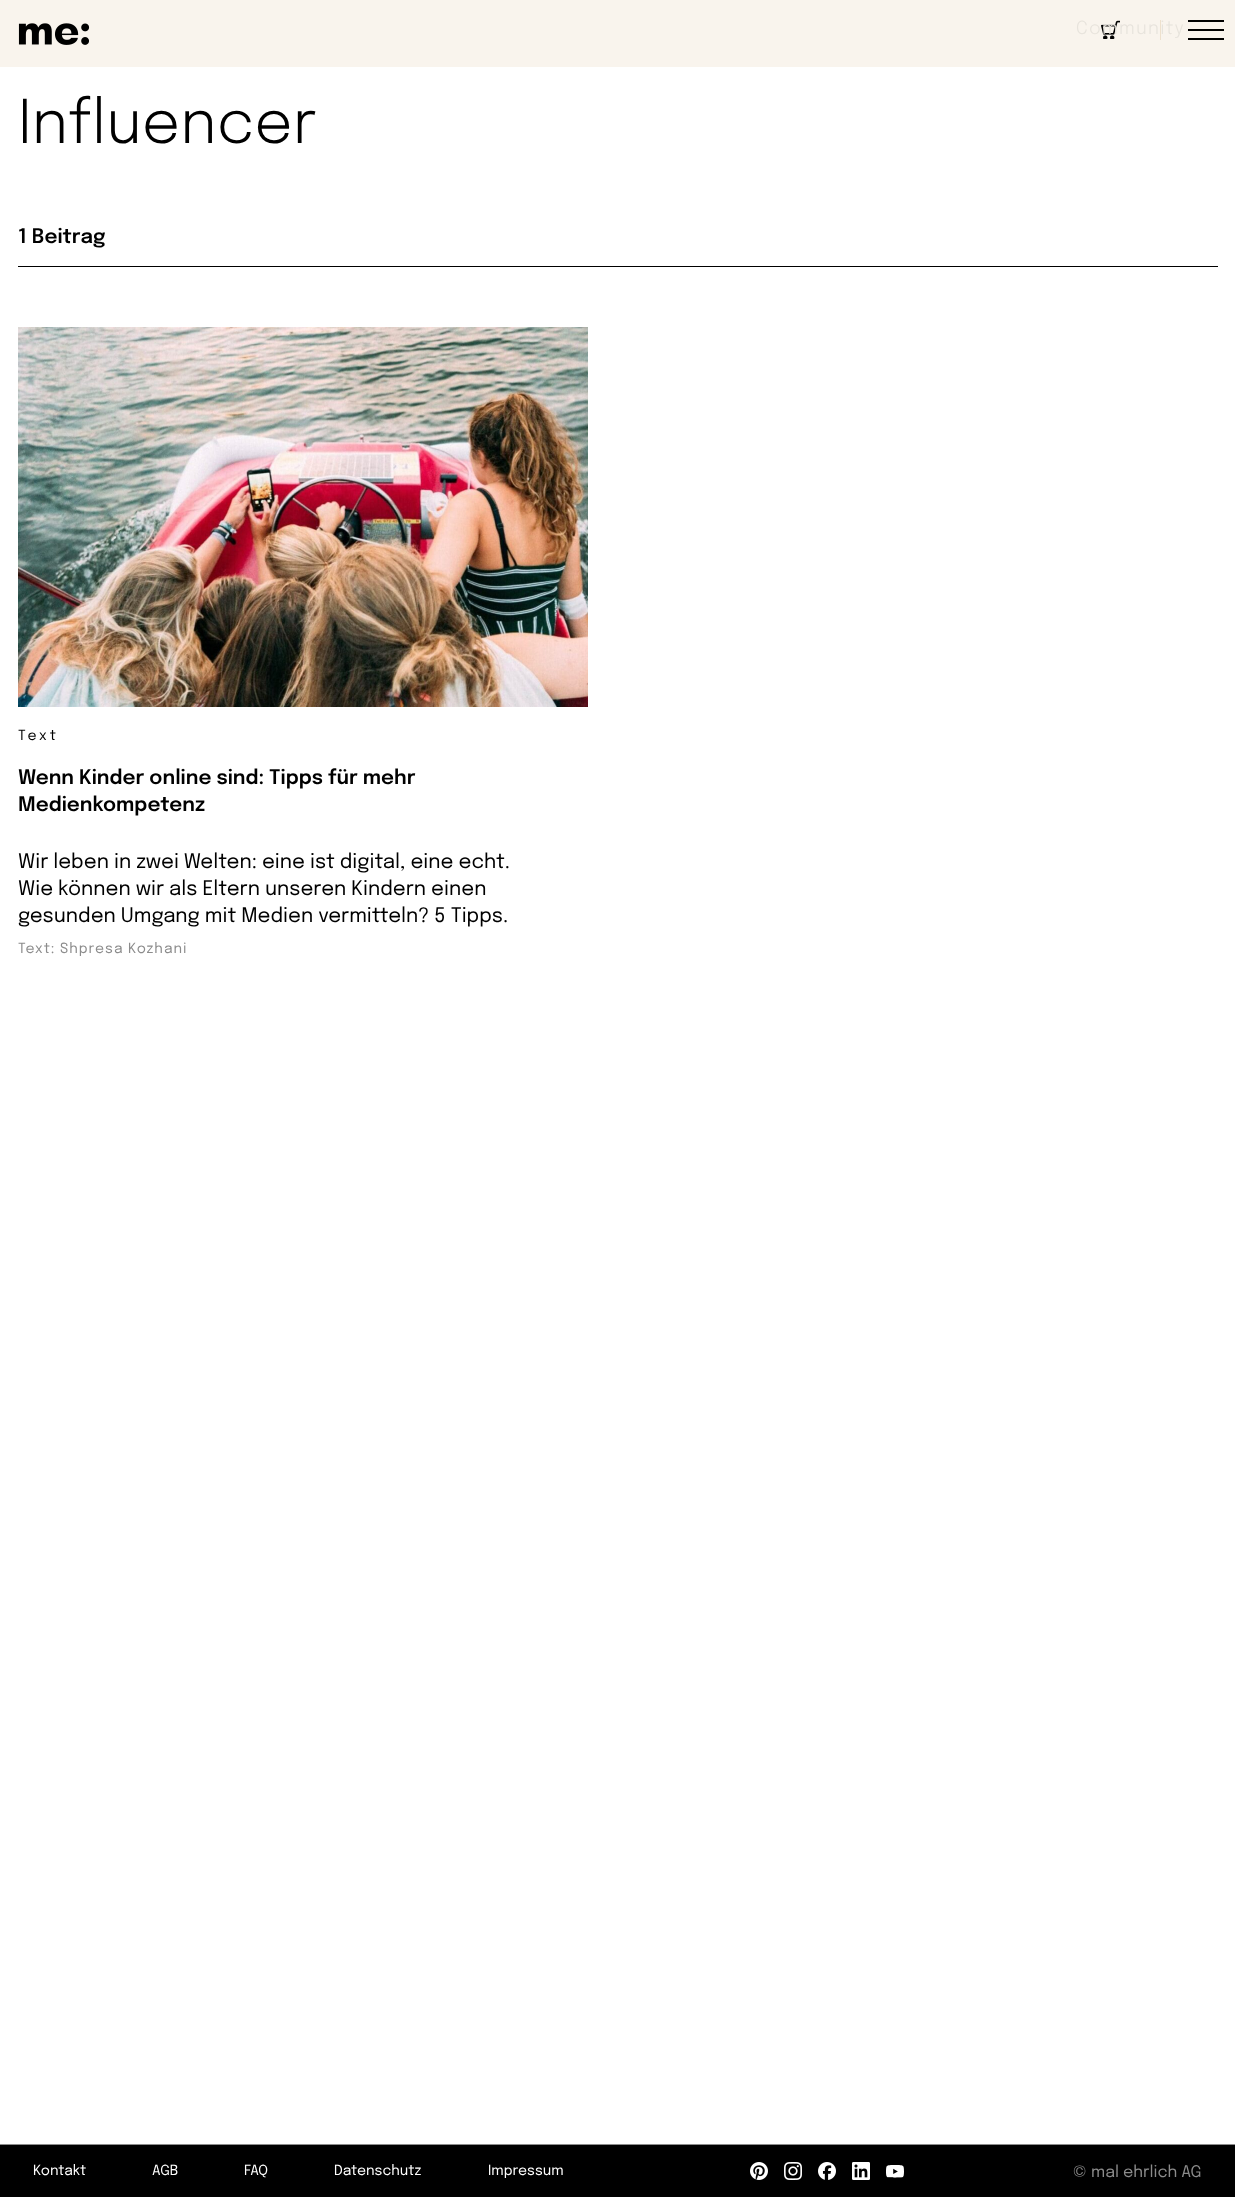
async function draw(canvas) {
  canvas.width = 1250
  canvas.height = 2197
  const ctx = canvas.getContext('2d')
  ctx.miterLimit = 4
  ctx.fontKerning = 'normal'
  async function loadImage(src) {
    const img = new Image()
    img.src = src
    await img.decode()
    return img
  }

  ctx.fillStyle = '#fff'
  ctx.fillRect(0, 0, 1250, 2197)
  ctx.fillStyle = '#f9f4ed'
  ctx.fillRect(0, 0, 1235, 67)
  ctx.fillStyle = '#eee1cd'
  ctx.fillRect(1160, 20, 1, 20)
  ctx.drawImage(await loadImage('image1.png'), 1101, 20, 19, 19)
  ctx.letterSpacing = '1.25px'
  ctx.font = '300 18px Epilogue'
  ctx.fillStyle = '#e7e3dc'
  ctx.fillText('Community', 1076, 34)
  ctx.drawImage(await loadImage('image0.png'), 18, 23, 72, 22)
  ctx.fillStyle = '#000'
  ctx.fillRect(1188, 20, 36, 2)
  ctx.fillRect(1188, 29, 36, 2)
  ctx.fillRect(1188, 38, 36, 2)
  ctx.letterSpacing = '0px'
  ctx.font = '300 60px Epilogue'
  ctx.fillText('Influencer', 18, 143)
  ctx.fillRect(18, 266, 1200, 1)
  ctx.font = '600 20px Epilogue'
  ctx.fillText('1 Beitrag', 18, 243)
  ctx.drawImage(await loadImage('image2.png'), 18, 327, 570, 380)
  ctx.letterSpacing = '3px'
  ctx.font = '14px Epilogue'
  ctx.fillText('Text', 18, 740)
  ctx.letterSpacing = '0px'
  ctx.font = '600 20px Epilogue'
  ctx.fillText('Wenn Kinder online sind: Tipps für mehr', 18, 784)
  ctx.fillText('Medienkompetenz', 18, 811)
  ctx.font = '20px Epilogue'
  ctx.fillText('Wir leben in zwei Welten: eine ist digital, eine echt.', 18, 868)
  ctx.fillText('Wie können wir als Eltern unseren Kindern einen', 18, 895)
  ctx.fillText('gesunden Umgang mit Medien vermitteln? 5 Tipps.', 18, 922)
  ctx.letterSpacing = '1px'
  ctx.font = '14px Epilogue'
  ctx.fillStyle = '#8c8c8c'
  ctx.fillText('Text: Shpresa Kozhani', 18, 953)
  ctx.fillStyle = '#000'
  ctx.fillRect(0, 2145, 1235, 52)
  ctx.fillStyle = '#8c8c8c'
  ctx.fillRect(0, 2144, 1235, 1)
  ctx.letterSpacing = '0px'
  ctx.fillStyle = '#fff'
  ctx.fillText('Kontakt', 33, 2175)
  ctx.fillText('AGB', 152, 2175)
  ctx.fillText('FAQ', 244, 2175)
  ctx.fillText('Datenschutz', 334, 2175)
  ctx.fillText('Impressum', 488, 2175)
  ctx.drawImage(await loadImage('image3.png'), 750, 2162, 18, 18)
  ctx.drawImage(await loadImage('image4.png'), 784, 2162, 18, 18)
  ctx.drawImage(await loadImage('image5.png'), 818, 2162, 18, 18)
  ctx.drawImage(await loadImage('image6.png'), 852, 2162, 18, 18)
  ctx.drawImage(await loadImage('image7.png'), 886, 2165, 18, 13)
  ctx.font = '16px Epilogue'
  ctx.fillStyle = '#8c8c8c'
  ctx.fillText('© mal ehrlich AG', 1073, 2177)
}

draw(document.querySelector('canvas'))
